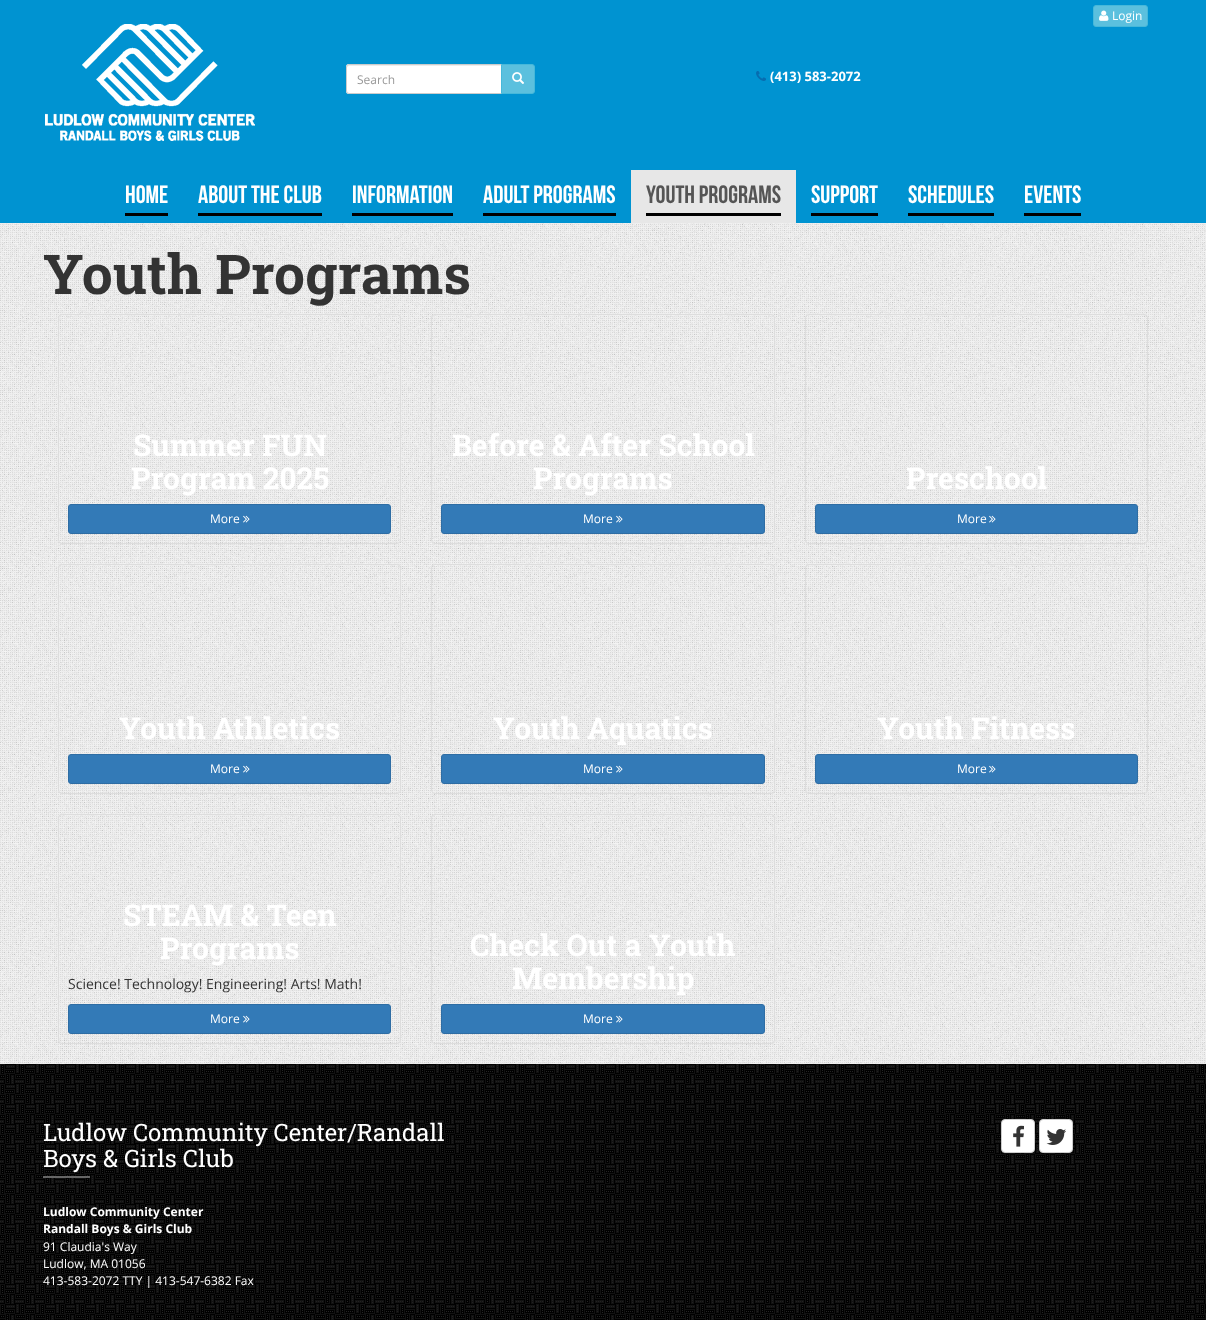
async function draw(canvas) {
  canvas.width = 1206
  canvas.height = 1320
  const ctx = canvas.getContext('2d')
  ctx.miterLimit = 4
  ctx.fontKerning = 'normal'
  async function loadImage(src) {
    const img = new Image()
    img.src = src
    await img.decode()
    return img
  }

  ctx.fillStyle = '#fff'
  ctx.fillRect(0, 0, 1206, 1320)
  ctx.drawImage(await loadImage('image0.png'), 0, 223, 1206, 841)
  ctx.fillStyle = '#0093d1'
  ctx.fillRect(0, 0, 1206, 223)
  ctx.fillStyle = '#5bc0de'
  ctx.beginPath()
  ctx.roundRect(1093.5, 5.5, 54, 21, 2.5)
  ctx.fill()
  ctx.strokeStyle = '#46b8da'
  ctx.stroke()
  ctx.drawImage(await loadImage('image1.png'), 1099, 10, 10, 11)
  ctx.font = '12px Open Sans'
  ctx.fillStyle = '#fff'
  ctx.fillText('Login', 1112, 20)
  ctx.drawImage(await loadImage('image2.png'), 45, 24, 210, 117)
  ctx.beginPath()
  ctx.roundRect(346, 64, 156, 30, [3, 0, 0, 3])
  ctx.fill()
  ctx.fillStyle = '#ececec'
  ctx.beginPath()
  ctx.moveTo(349, 66)
  ctx.lineTo(501, 66)
  ctx.lineTo(501, 65)
  ctx.lineTo(348, 65)
  ctx.bezierCurveTo(347, 66, 347, 67, 347, 68)
  ctx.bezierCurveTo(347, 67, 348, 66, 349, 66)
  ctx.closePath()
  ctx.fill()
  ctx.beginPath()
  ctx.roundRect(346.5, 64.5, 155, 29, [2.5, 0, 0, 2.5])
  ctx.strokeStyle = '#ccc'
  ctx.stroke()
  ctx.fillStyle = '#999'
  ctx.fillText('Search', 357, 84)
  ctx.fillStyle = '#5bc0de'
  ctx.beginPath()
  ctx.roundRect(501.5, 64.5, 33, 29, [0, 2.5, 2.5, 0])
  ctx.fill()
  ctx.strokeStyle = '#46b8da'
  ctx.stroke()
  ctx.drawImage(await loadImage('image3.png'), 512, 72, 12, 12)
  ctx.drawImage(await loadImage('image4.png'), 756, 71, 10, 10)
  ctx.font = 'bold 13px Open Sans'
  ctx.fillStyle = '#fff'
  ctx.fillText('(413) 583-2072', 770, 81)
  ctx.font = '25px Bebas Neue'
  ctx.fillText('HOME', 125, 203)
  ctx.fillStyle = '#000'
  ctx.fillRect(125, 213, 43, 3)
  ctx.fillStyle = '#fff'
  ctx.fillText('ABOUT THE CLUB', 198, 203)
  ctx.fillStyle = '#000'
  ctx.fillRect(198, 213, 124, 3)
  ctx.fillStyle = '#fff'
  ctx.fillText('INFORMATION', 352, 203)
  ctx.fillStyle = '#000'
  ctx.fillRect(352, 213, 101, 3)
  ctx.fillStyle = '#fff'
  ctx.fillText('ADULT PROGRAMS', 483, 203)
  ctx.fillStyle = '#000'
  ctx.fillRect(483, 213, 133, 3)
  ctx.fillStyle = '#e7e7e7'
  ctx.fillRect(631, 170, 165, 53)
  ctx.fillStyle = '#555'
  ctx.fillText('YOUTH PROGRAMS', 646, 203)
  ctx.fillStyle = '#000'
  ctx.fillRect(646, 213, 135, 3)
  ctx.fillStyle = '#fff'
  ctx.fillText('SUPPORT', 811, 203)
  ctx.fillStyle = '#000'
  ctx.fillRect(811, 213, 67, 3)
  ctx.fillStyle = '#fff'
  ctx.fillText('SCHEDULES', 908, 203)
  ctx.fillStyle = '#000'
  ctx.fillRect(908, 213, 86, 3)
  ctx.fillStyle = '#fff'
  ctx.fillText('EVENTS', 1024, 203)
  ctx.fillStyle = '#000'
  ctx.fillRect(1024, 213, 57, 3)
  ctx.font = 'bold 55px Roboto Slab'
  ctx.fillStyle = '#333'
  ctx.fillText('Youth Programs', 43, 294)
  ctx.beginPath()
  ctx.roundRect(58.5, 314.5, 342, 229, 3.5)
  ctx.strokeStyle = '#ddd'
  ctx.stroke()
  ctx.font = 'bold 30px Roboto Slab'
  ctx.fillStyle = '#fff'
  ctx.fillText('Summer FUN', 133, 456)
  ctx.fillText('Program 2025', 131, 489)
  ctx.fillStyle = '#337ab7'
  ctx.beginPath()
  ctx.roundRect(68.5, 504.5, 322, 29, 2.5)
  ctx.fill()
  ctx.strokeStyle = '#2e6da4'
  ctx.stroke()
  ctx.font = '12px Open Sans'
  ctx.fillStyle = '#fff'
  ctx.fillText('More', 210, 523)
  ctx.drawImage(await loadImage('image5.png'), 243, 515, 7, 8)
  ctx.beginPath()
  ctx.roundRect(431.5, 314.5, 343, 229, 3.5)
  ctx.strokeStyle = '#ddd'
  ctx.stroke()
  ctx.font = 'bold 30px Roboto Slab'
  ctx.fillText('Before & After School', 452, 456)
  ctx.fillText('Programs', 533, 489)
  ctx.fillStyle = '#337ab7'
  ctx.beginPath()
  ctx.roundRect(441.5, 504.5, 323, 29, 2.5)
  ctx.fill()
  ctx.strokeStyle = '#2e6da4'
  ctx.stroke()
  ctx.font = '12px Open Sans'
  ctx.fillStyle = '#fff'
  ctx.fillText('More', 583, 523)
  ctx.drawImage(await loadImage('image5.png'), 616, 515, 7, 8)
  ctx.beginPath()
  ctx.roundRect(805.5, 314.5, 342, 229, 3.5)
  ctx.strokeStyle = '#ddd'
  ctx.stroke()
  ctx.font = 'bold 30px Roboto Slab'
  ctx.fillText('Preschool', 906, 489)
  ctx.fillStyle = '#337ab7'
  ctx.beginPath()
  ctx.roundRect(815.5, 504.5, 322, 29, 2.5)
  ctx.fill()
  ctx.strokeStyle = '#2e6da4'
  ctx.stroke()
  ctx.font = '12px Open Sans'
  ctx.fillStyle = '#fff'
  ctx.fillText('More', 957, 523)
  ctx.drawImage(await loadImage('image5.png'), 989, 515, 7, 8)
  ctx.beginPath()
  ctx.roundRect(58.5, 564.5, 342, 229, 3.5)
  ctx.strokeStyle = '#ddd'
  ctx.stroke()
  ctx.font = 'bold 30px Roboto Slab'
  ctx.fillText('Youth Athletics', 119, 739)
  ctx.fillStyle = '#337ab7'
  ctx.beginPath()
  ctx.roundRect(68.5, 754.5, 322, 29, 2.5)
  ctx.fill()
  ctx.strokeStyle = '#2e6da4'
  ctx.stroke()
  ctx.font = '12px Open Sans'
  ctx.fillStyle = '#fff'
  ctx.fillText('More', 210, 773)
  ctx.drawImage(await loadImage('image5.png'), 243, 765, 7, 8)
  ctx.beginPath()
  ctx.roundRect(431.5, 564.5, 343, 229, 3.5)
  ctx.strokeStyle = '#ddd'
  ctx.stroke()
  ctx.font = 'bold 30px Roboto Slab'
  ctx.fillText('Youth Aquatics', 493, 739)
  ctx.fillStyle = '#337ab7'
  ctx.beginPath()
  ctx.roundRect(441.5, 754.5, 323, 29, 2.5)
  ctx.fill()
  ctx.strokeStyle = '#2e6da4'
  ctx.stroke()
  ctx.font = '12px Open Sans'
  ctx.fillStyle = '#fff'
  ctx.fillText('More', 583, 773)
  ctx.drawImage(await loadImage('image5.png'), 616, 765, 7, 8)
  ctx.beginPath()
  ctx.roundRect(805.5, 564.5, 342, 229, 3.5)
  ctx.strokeStyle = '#ddd'
  ctx.stroke()
  ctx.font = 'bold 30px Roboto Slab'
  ctx.fillText('Youth Fitness', 877, 739)
  ctx.fillStyle = '#337ab7'
  ctx.beginPath()
  ctx.roundRect(815.5, 754.5, 322, 29, 2.5)
  ctx.fill()
  ctx.strokeStyle = '#2e6da4'
  ctx.stroke()
  ctx.font = '12px Open Sans'
  ctx.fillStyle = '#fff'
  ctx.fillText('More', 957, 773)
  ctx.drawImage(await loadImage('image5.png'), 989, 765, 7, 8)
  ctx.beginPath()
  ctx.roundRect(58.5, 814.5, 342, 229, 3.5)
  ctx.strokeStyle = '#ddd'
  ctx.stroke()
  ctx.font = 'bold 30px Roboto Slab'
  ctx.fillText('STEAM & Teen', 123, 926)
  ctx.fillText('Programs', 160, 959)
  ctx.font = '14px Open Sans'
  ctx.fillStyle = '#333'
  ctx.fillText('Science! Technology! Engineering! Arts! Math!', 68, 989)
  ctx.fillStyle = '#337ab7'
  ctx.beginPath()
  ctx.roundRect(68.5, 1004.5, 322, 29, 2.5)
  ctx.fill()
  ctx.strokeStyle = '#2e6da4'
  ctx.stroke()
  ctx.font = '12px Open Sans'
  ctx.fillStyle = '#fff'
  ctx.fillText('More', 210, 1023)
  ctx.drawImage(await loadImage('image5.png'), 243, 1015, 7, 8)
  ctx.beginPath()
  ctx.roundRect(431.5, 814.5, 343, 229, 3.5)
  ctx.strokeStyle = '#ddd'
  ctx.stroke()
  ctx.font = 'bold 30px Roboto Slab'
  ctx.fillText('Check Out a Youth', 470, 956)
  ctx.fillText('Membership', 512, 989)
  ctx.fillStyle = '#337ab7'
  ctx.beginPath()
  ctx.roundRect(441.5, 1004.5, 323, 29, 2.5)
  ctx.fill()
  ctx.strokeStyle = '#2e6da4'
  ctx.stroke()
  ctx.font = '12px Open Sans'
  ctx.fillStyle = '#fff'
  ctx.fillText('More', 583, 1023)
  ctx.drawImage(await loadImage('image5.png'), 616, 1015, 7, 8)
  ctx.drawImage(await loadImage('image6.png'), 0, 1064, 1206, 256)
  ctx.font = '24px Roboto Slab'
  ctx.fillText('Ludlow Community Center/Randall', 43, 1141)
  ctx.fillText('Boys & Girls Club', 43, 1167)
  ctx.fillStyle = '#666'
  ctx.fillRect(43, 1176, 47, 2)
  ctx.font = 'bold 12px Open Sans'
  ctx.fillStyle = '#fff'
  ctx.fillText('Ludlow Community Center', 43, 1216)
  ctx.fillText('Randall Boys & Girls Club', 43, 1233)
  ctx.font = '12px Open Sans'
  ctx.fillText('91 Claudia\'s Way', 43, 1251)
  ctx.fillText('Ludlow, MA 01056', 43, 1268)
  ctx.fillText('413-583-2072 TTY | 413-547-6382 Fax', 43, 1285)
  ctx.beginPath()
  ctx.roundRect(1001.5, 1119.5, 33, 33, 3.5)
  ctx.fill()
  ctx.strokeStyle = '#ccc'
  ctx.stroke()
  ctx.drawImage(await loadImage('image7.png'), 1013, 1125, 11, 22)
  ctx.beginPath()
  ctx.roundRect(1039.5, 1119.5, 33, 33, 3.5)
  ctx.fill()
  ctx.stroke()
  ctx.drawImage(await loadImage('image8.png'), 1046, 1129, 20, 16)
}

draw(document.querySelector('canvas'))
